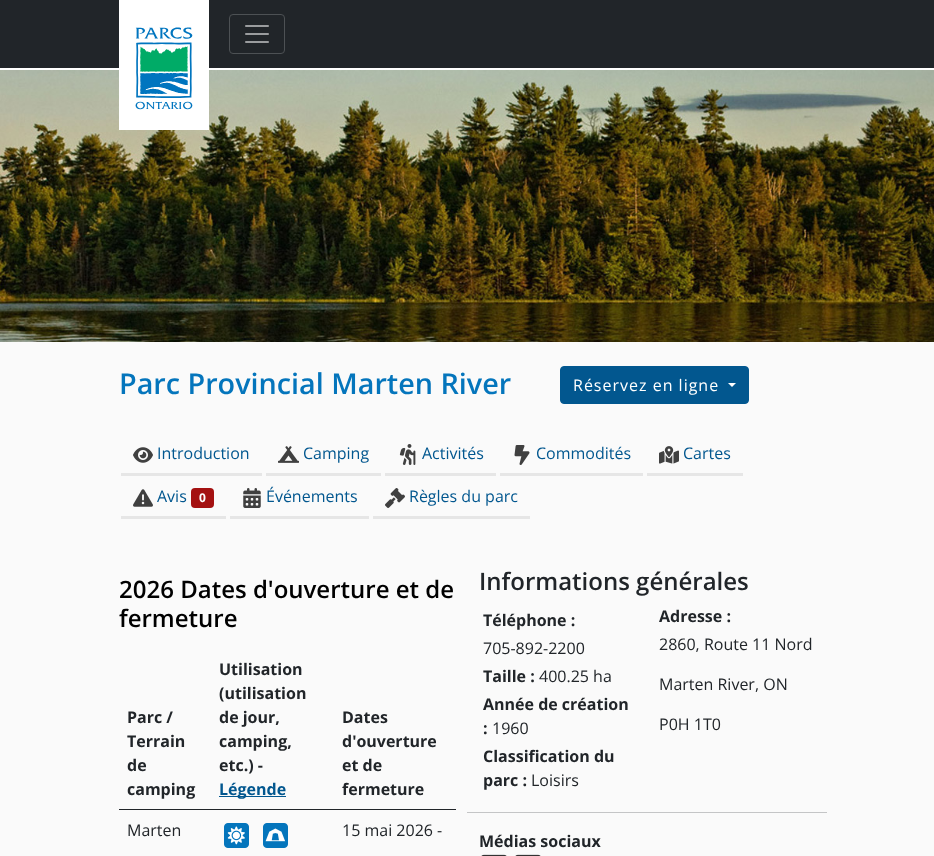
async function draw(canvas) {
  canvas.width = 934
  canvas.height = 856
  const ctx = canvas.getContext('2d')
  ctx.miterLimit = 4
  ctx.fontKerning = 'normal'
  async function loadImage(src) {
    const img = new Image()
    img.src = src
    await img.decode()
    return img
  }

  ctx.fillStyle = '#fafafa'
  ctx.fillRect(0, 0, 934, 856)
  ctx.fillStyle = '#212529'
  ctx.fillRect(0, 0, 934, 68)
  ctx.fillStyle = '#fff'
  ctx.fillRect(0, 68, 934, 2)
  ctx.drawImage(await loadImage('image2.png'), 0, 70, 934, 272)
  ctx.fillRect(119, 0, 90, 130)
  ctx.drawImage(await loadImage('image0.png'), 135, 27, 58, 83)
  ctx.beginPath()
  ctx.roundRect(229.5, 14.5, 55, 39, 3.5)
  ctx.strokeStyle = '#4d5154'
  ctx.stroke()
  ctx.drawImage(await loadImage('image1.png'), 245, 25, 24, 18)
  ctx.font = '600 28.75px Open Sans'
  ctx.fillStyle = '#0475bc'
  ctx.fillText('Parc Provincial Marten River', 119, 394)
  ctx.fillStyle = '#02578f'
  ctx.beginPath()
  ctx.roundRect(560.5, 366.5, 188, 37, 3.5)
  ctx.fill()
  ctx.strokeStyle = '#02578f'
  ctx.stroke()
  ctx.letterSpacing = '1px'
  ctx.font = '16px Open Sans'
  ctx.fillStyle = '#fff'
  ctx.fillText('Réservez en ligne', 573, 391)
  ctx.beginPath()
  ctx.moveTo(728, 383)
  ctx.lineTo(736, 383)
  ctx.lineTo(732, 387)
  ctx.closePath()
  ctx.fill()
  ctx.fillStyle = '#e6e6e6'
  ctx.fillRect(121, 473, 141, 3)
  ctx.drawImage(await loadImage('image3.png'), 133, 447, 20, 16)
  ctx.letterSpacing = '0px'
  ctx.fillStyle = '#02578f'
  ctx.fillText('Introduction', 157, 459)
  ctx.fillStyle = '#e6e6e6'
  ctx.fillRect(266, 473, 115, 3)
  ctx.drawImage(await loadImage('image4.png'), 278, 446, 21, 17)
  ctx.fillStyle = '#02578f'
  ctx.fillText('Camping', 303, 459)
  ctx.fillStyle = '#e6e6e6'
  ctx.fillRect(385, 473, 111, 3)
  ctx.drawImage(await loadImage('image5.png'), 399, 444, 17, 21)
  ctx.fillStyle = '#02578f'
  ctx.fillText('Activités', 422, 459)
  ctx.fillStyle = '#e6e6e6'
  ctx.fillRect(500, 473, 143, 3)
  ctx.drawImage(await loadImage('image6.png'), 514, 445, 16, 20)
  ctx.fillStyle = '#02578f'
  ctx.fillText('Commodités', 536, 459)
  ctx.fillStyle = '#e6e6e6'
  ctx.fillRect(647, 473, 96, 3)
  ctx.drawImage(await loadImage('image7.png'), 659, 446, 20, 18)
  ctx.fillStyle = '#02578f'
  ctx.fillText('Cartes', 683, 459)
  ctx.fillStyle = '#e6e6e6'
  ctx.fillRect(121, 516, 105, 3)
  ctx.drawImage(await loadImage('image8.png'), 133, 489, 20, 18)
  ctx.fillStyle = '#02578f'
  ctx.fillText('Avis', 157, 502)
  ctx.fillStyle = '#a41111'
  ctx.beginPath()
  ctx.roundRect(191, 488, 23, 20, 4)
  ctx.fill()
  ctx.font = 'bold 12px Open Sans'
  ctx.fillStyle = '#fff'
  ctx.fillText('0', 199, 502)
  ctx.fillStyle = '#e6e6e6'
  ctx.fillRect(230, 516, 139, 3)
  ctx.drawImage(await loadImage('image9.png'), 243, 488, 18, 20)
  ctx.font = '16px Open Sans'
  ctx.fillStyle = '#02578f'
  ctx.fillText('Événements', 266, 502)
  ctx.fillStyle = '#e6e6e6'
  ctx.fillRect(373, 516, 157, 3)
  ctx.drawImage(await loadImage('image10.png'), 385, 488, 20, 20)
  ctx.fillStyle = '#02578f'
  ctx.fillText('Règles du parc', 409, 502)
  ctx.font = '600 24px Open Sans'
  ctx.fillStyle = '#000'
  ctx.fillText('2026 Dates d\'ouverture et de', 119, 598)
  ctx.fillText('fermeture', 119, 627)
  ctx.font = 'bold 16px Open Sans'
  ctx.fillStyle = '#212529'
  ctx.fillText('Parc /', 127, 723)
  ctx.fillText('Terrain', 127, 747)
  ctx.fillText('de', 127, 771)
  ctx.fillText('camping', 127, 795)
  ctx.fillText('Utilisation', 219, 675)
  ctx.fillText('(utilisation', 219, 699)
  ctx.fillText('de jour,', 219, 723)
  ctx.fillText('camping,', 219, 747)
  ctx.fillText('etc.) -', 219, 771)
  ctx.fillStyle = '#02578f'
  ctx.fillRect(219, 796, 67, 1)
  ctx.fillText('Légende', 219, 795)
  ctx.fillStyle = '#212529'
  ctx.fillRect(119, 809, 337, 1)
  ctx.fillText('Dates', 342, 723)
  ctx.fillText('d\'ouverture', 342, 747)
  ctx.fillText('et de', 342, 771)
  ctx.fillText('fermeture', 342, 795)
  ctx.font = '16px Open Sans'
  ctx.fillText('Marten', 127, 836)
  ctx.drawImage(await loadImage('image11.png'), 224, 823, 25, 25)
  ctx.drawImage(await loadImage('image12.png'), 263, 823, 25, 25)
  ctx.fillText('15 mai 2026 -', 342, 836)
  ctx.font = '600 24px Open Sans'
  ctx.fillText('Informations générales', 479, 590)
  ctx.font = 'bold 16px Open Sans'
  ctx.fillText('Téléphone :', 483, 626)
  ctx.font = '16px Open Sans'
  ctx.fillText('705-892-2200', 483, 654)
  ctx.font = 'bold 16px Open Sans'
  ctx.fillText('Taille :', 483, 682)
  ctx.font = '16px Open Sans'
  ctx.fillText('400.25 ha', 539, 682)
  ctx.font = 'bold 16px Open Sans'
  ctx.fillText('Année de création', 483, 710)
  ctx.fillText(':', 483, 734)
  ctx.font = '16px Open Sans'
  ctx.fillText('1960', 492, 734)
  ctx.font = 'bold 16px Open Sans'
  ctx.fillText('Classification du', 483, 762)
  ctx.fillText('parc :', 483, 786)
  ctx.font = '16px Open Sans'
  ctx.fillText('Loisirs', 531, 786)
  ctx.font = 'bold 16px Open Sans'
  ctx.fillText('Adresse :', 659, 622)
  ctx.font = '16px Open Sans'
  ctx.fillText('2860, Route 11 Nord', 659, 650)
  ctx.fillText('Marten River, ON', 659, 690)
  ctx.fillText('P0H 1T0', 659, 730)
  ctx.fillStyle = '#c4c5c6'
  ctx.fillRect(467, 812, 360, 1)
  ctx.font = 'bold 16px Open Sans'
  ctx.fillStyle = '#212529'
  ctx.fillText('Médias sociaux', 479, 847)
  ctx.drawImage(await loadImage('image13.png'), 481, 854, 26, 2)
  ctx.drawImage(await loadImage('image13.png'), 515, 854, 26, 2)
}

draw(document.querySelector('canvas'))
